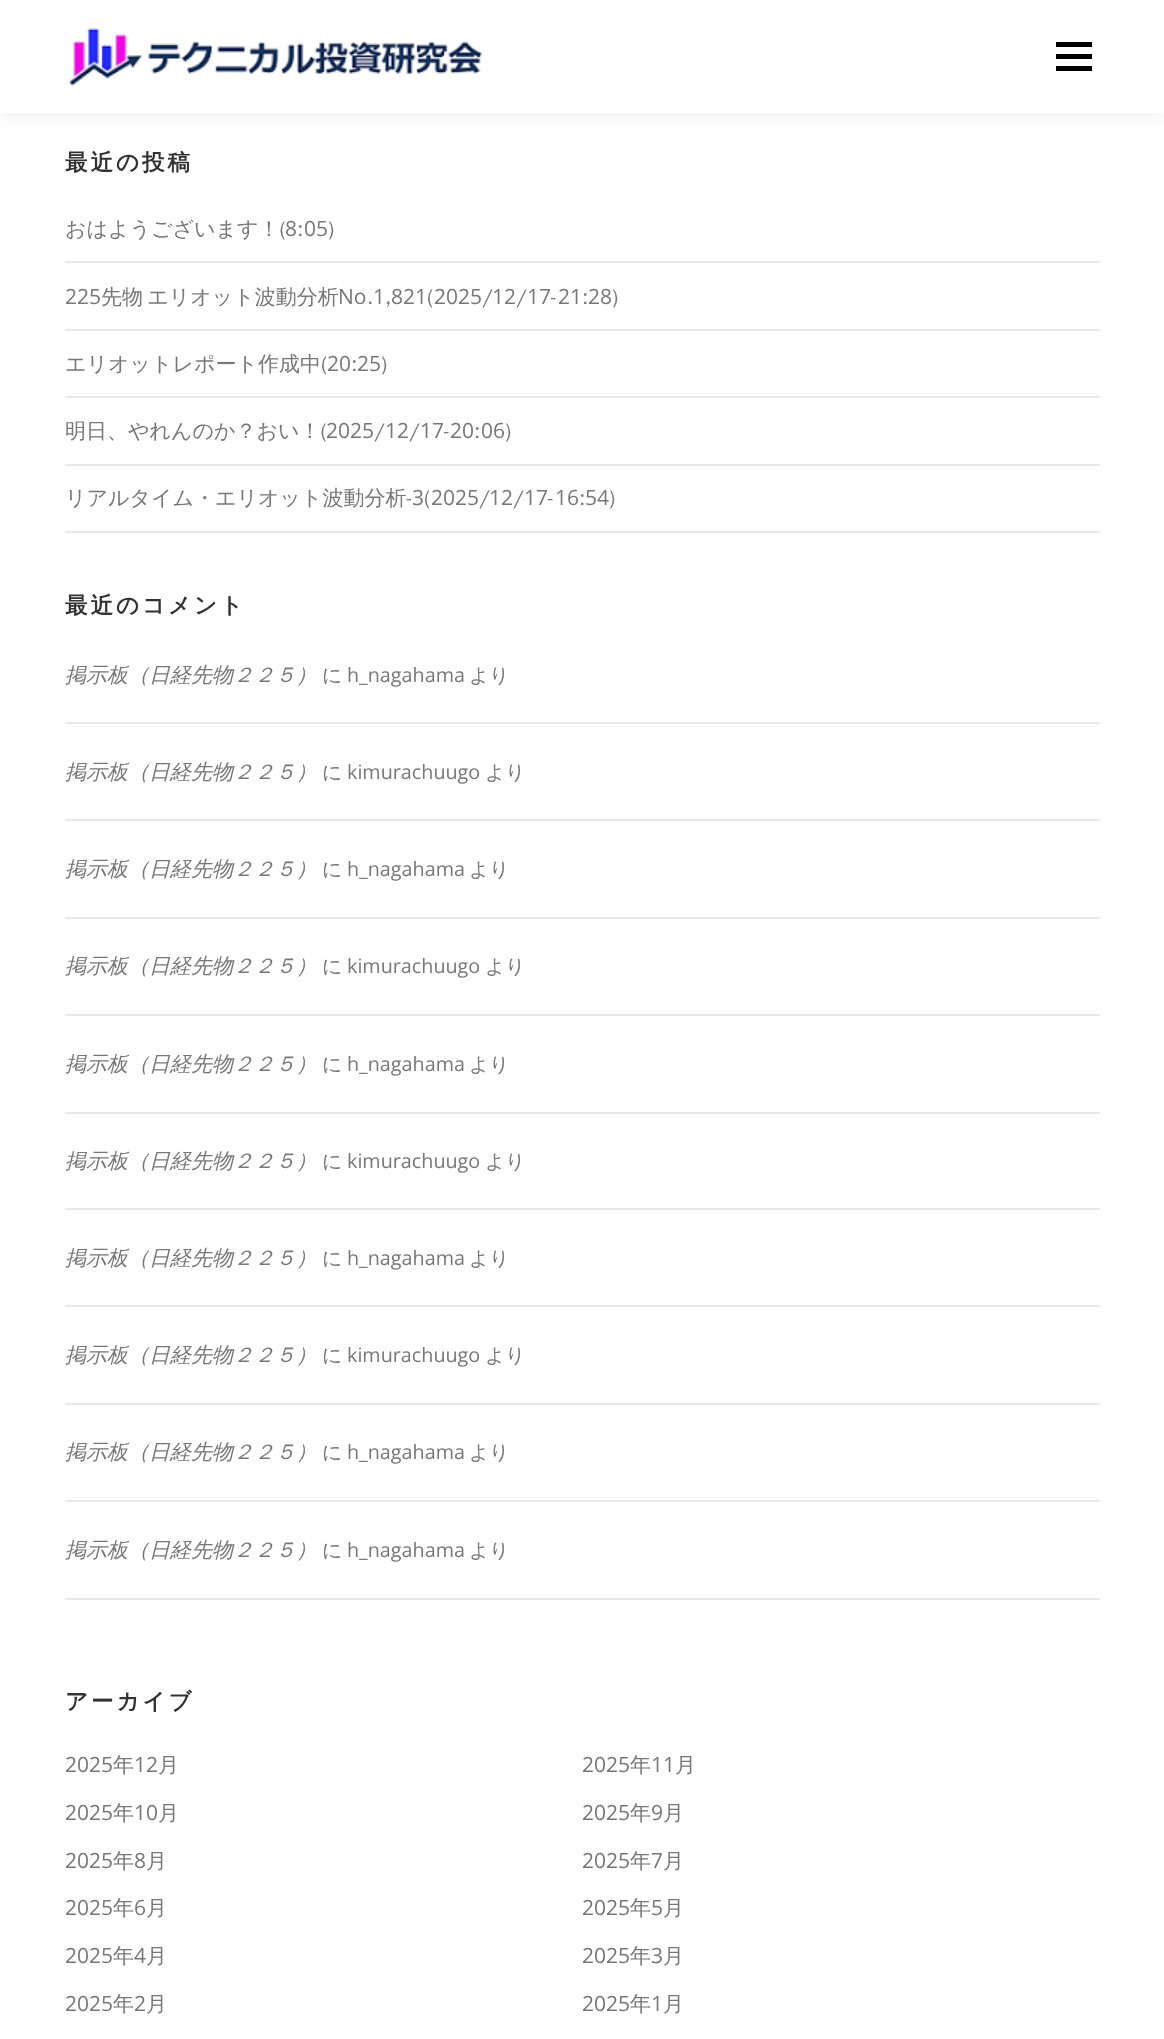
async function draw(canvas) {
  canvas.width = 1164
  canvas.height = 2039
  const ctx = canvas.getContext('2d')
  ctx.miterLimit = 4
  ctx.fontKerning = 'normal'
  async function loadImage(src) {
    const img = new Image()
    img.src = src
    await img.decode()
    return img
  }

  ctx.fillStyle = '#fff'
  ctx.fillRect(0, 0, 1164, 2039)
  ctx.fillStyle = '#3232320f'
  ctx.filter = 'blur(7.5px)'
  ctx.beginPath()
  ctx.rect(0, 8, 1164, 112)
  ctx.fill()
  ctx.filter = 'none'
  ctx.fillStyle = '#fff'
  ctx.fillRect(0, 2, 1164, 111)
  ctx.drawImage(await loadImage('image0.png'), 68, 28, 415, 58)
  ctx.fillStyle = '#000'
  ctx.fillRect(1056, 54, 36, 5)
  ctx.fillRect(1056, 42, 36, 5)
  ctx.fillRect(1056, 66, 36, 5)
  ctx.letterSpacing = '3px'
  ctx.font = 'bold 22.5px WenQuanYi Zen Hei'
  ctx.fillStyle = '#333'
  ctx.fillText('最近の投稿', 65, 170)
  ctx.fillStyle = '#e9e9e9'
  ctx.fillRect(65, 261, 1035, 2)
  ctx.letterSpacing = '0px'
  ctx.font = '500 21px WenQuanYi Zen Hei'
  ctx.fillStyle = '#777'
  ctx.fillText('おはようございます！(', 65, 236)
  ctx.font = '21px Open Sans'
  ctx.fillText('8', 285, 236)
  ctx.font = '500 21px WenQuanYi Zen Hei'
  ctx.fillText(':', 297, 236)
  ctx.font = '21px Open Sans'
  ctx.fillText('05', 304, 236)
  ctx.font = '500 21px WenQuanYi Zen Hei'
  ctx.fillText(')', 328, 236)
  ctx.fillStyle = '#e9e9e9'
  ctx.fillRect(65, 329, 1035, 2)
  ctx.font = '21px Open Sans'
  ctx.fillStyle = '#777'
  ctx.fillText('225', 65, 304)
  ctx.wordSpacing = '-2px'
  ctx.font = '500 21px WenQuanYi Zen Hei'
  ctx.fillText('先物 エリオット波動分析', 101, 304)
  ctx.wordSpacing = '0px'
  ctx.font = '21px Open Sans'
  ctx.fillText('No', 338, 304)
  ctx.fillText('1', 373, 304)
  ctx.fillText('821', 391, 304)
  ctx.font = '500 21px WenQuanYi Zen Hei'
  ctx.fillText('(', 427, 304)
  ctx.font = '21px Open Sans'
  ctx.fillText('2025', 434, 304)
  ctx.font = '500 21px WenQuanYi Zen Hei'
  ctx.fillText('/', 482, 304)
  ctx.font = '21px Open Sans'
  ctx.fillText('12', 492, 304)
  ctx.font = '500 21px WenQuanYi Zen Hei'
  ctx.fillText('/', 516, 304)
  ctx.font = '21px Open Sans'
  ctx.fillText('17', 527, 304)
  ctx.font = '500 21px WenQuanYi Zen Hei'
  ctx.fillText('-', 551, 304)
  ctx.font = '21px Open Sans'
  ctx.fillText('21', 558, 304)
  ctx.font = '500 21px WenQuanYi Zen Hei'
  ctx.fillText(':', 582, 304)
  ctx.font = '21px Open Sans'
  ctx.fillText('28', 588, 304)
  ctx.font = '500 21px WenQuanYi Zen Hei'
  ctx.fillText(')', 612, 304)
  ctx.fillText('.', 367, 304)
  ctx.fillText(',', 385, 304)
  ctx.fillStyle = '#e9e9e9'
  ctx.fillRect(65, 396, 1035, 2)
  ctx.fillStyle = '#777'
  ctx.fillText('エリオットレポート作成中(', 65, 371)
  ctx.font = '21px Open Sans'
  ctx.fillText('20', 327, 371)
  ctx.font = '500 21px WenQuanYi Zen Hei'
  ctx.fillText(':', 351, 371)
  ctx.font = '21px Open Sans'
  ctx.fillText('25', 357, 371)
  ctx.font = '500 21px WenQuanYi Zen Hei'
  ctx.fillText(')', 381, 371)
  ctx.fillStyle = '#e9e9e9'
  ctx.fillRect(65, 464, 1035, 2)
  ctx.fillStyle = '#777'
  ctx.fillText('明日、やれんのか？おい！(', 65, 438)
  ctx.font = '21px Open Sans'
  ctx.fillText('2025', 326, 438)
  ctx.font = '500 21px WenQuanYi Zen Hei'
  ctx.fillText('/', 374, 438)
  ctx.font = '21px Open Sans'
  ctx.fillText('12', 385, 438)
  ctx.font = '500 21px WenQuanYi Zen Hei'
  ctx.fillText('/', 409, 438)
  ctx.font = '21px Open Sans'
  ctx.fillText('17', 420, 438)
  ctx.font = '500 21px WenQuanYi Zen Hei'
  ctx.fillText('-', 444, 438)
  ctx.font = '21px Open Sans'
  ctx.fillText('20', 450, 438)
  ctx.font = '500 21px WenQuanYi Zen Hei'
  ctx.fillText(':', 474, 438)
  ctx.font = '21px Open Sans'
  ctx.fillText('06', 481, 438)
  ctx.font = '500 21px WenQuanYi Zen Hei'
  ctx.fillText(')', 505, 438)
  ctx.fillStyle = '#e9e9e9'
  ctx.fillRect(65, 531, 1035, 2)
  ctx.fillStyle = '#777'
  ctx.fillText('リアルタイム・エリオット波動分析-', 65, 505)
  ctx.font = '21px Open Sans'
  ctx.fillText('3', 412, 505)
  ctx.font = '500 21px WenQuanYi Zen Hei'
  ctx.fillText('(', 424, 505)
  ctx.font = '21px Open Sans'
  ctx.fillText('2025', 431, 505)
  ctx.font = '500 21px WenQuanYi Zen Hei'
  ctx.fillText('/', 479, 505)
  ctx.font = '21px Open Sans'
  ctx.fillText('12', 489, 505)
  ctx.font = '500 21px WenQuanYi Zen Hei'
  ctx.fillText('/', 513, 505)
  ctx.font = '21px Open Sans'
  ctx.fillText('17', 524, 505)
  ctx.font = '500 21px WenQuanYi Zen Hei'
  ctx.fillText('-', 548, 505)
  ctx.font = '21px Open Sans'
  ctx.fillText('16', 555, 505)
  ctx.font = '500 21px WenQuanYi Zen Hei'
  ctx.fillText(':', 579, 505)
  ctx.font = '21px Open Sans'
  ctx.fillText('54', 585, 505)
  ctx.font = '500 21px WenQuanYi Zen Hei'
  ctx.fillText(')', 609, 505)
  ctx.letterSpacing = '3px'
  ctx.font = 'bold 22.5px WenQuanYi Zen Hei'
  ctx.fillStyle = '#333'
  ctx.fillText('最近のコメント', 65, 613)
  ctx.fillStyle = '#e9e9e9'
  ctx.fillRect(65, 722, 1035, 2)
  ctx.letterSpacing = '0px'
  ctx.font = 'italic 500 21px WenQuanYi Zen Hei'
  ctx.fillStyle = '#777'
  ctx.fillText('掲示板（日経先物２２５）', 65, 682)
  ctx.font = '500 19.75px WenQuanYi Zen Hei'
  ctx.fillText('に', 322, 682)
  ctx.font = '19.75px Open Sans'
  ctx.fillText('h_nagahama', 347, 682)
  ctx.font = '500 19.75px WenQuanYi Zen Hei'
  ctx.fillText('より', 469, 682)
  ctx.fillStyle = '#e9e9e9'
  ctx.fillRect(65, 819, 1035, 2)
  ctx.font = 'italic 500 21px WenQuanYi Zen Hei'
  ctx.fillStyle = '#777'
  ctx.fillText('掲示板（日経先物２２５）', 65, 779)
  ctx.font = '500 19.75px WenQuanYi Zen Hei'
  ctx.fillText('に', 322, 779)
  ctx.font = '19.75px Open Sans'
  ctx.fillText('kimurachuugo', 347, 779)
  ctx.font = '500 19.75px WenQuanYi Zen Hei'
  ctx.fillText('より', 485, 779)
  ctx.fillStyle = '#e9e9e9'
  ctx.fillRect(65, 917, 1035, 2)
  ctx.font = 'italic 500 21px WenQuanYi Zen Hei'
  ctx.fillStyle = '#777'
  ctx.fillText('掲示板（日経先物２２５）', 65, 876)
  ctx.font = '500 19.75px WenQuanYi Zen Hei'
  ctx.fillText('に', 322, 876)
  ctx.font = '19.75px Open Sans'
  ctx.fillText('h_nagahama', 347, 876)
  ctx.font = '500 19.75px WenQuanYi Zen Hei'
  ctx.fillText('より', 469, 876)
  ctx.fillStyle = '#e9e9e9'
  ctx.fillRect(65, 1014, 1035, 2)
  ctx.font = 'italic 500 21px WenQuanYi Zen Hei'
  ctx.fillStyle = '#777'
  ctx.fillText('掲示板（日経先物２２５）', 65, 973)
  ctx.font = '500 19.75px WenQuanYi Zen Hei'
  ctx.fillText('に', 322, 973)
  ctx.font = '19.75px Open Sans'
  ctx.fillText('kimurachuugo', 347, 973)
  ctx.font = '500 19.75px WenQuanYi Zen Hei'
  ctx.fillText('より', 485, 973)
  ctx.fillStyle = '#e9e9e9'
  ctx.fillRect(65, 1112, 1035, 2)
  ctx.font = 'italic 500 21px WenQuanYi Zen Hei'
  ctx.fillStyle = '#777'
  ctx.fillText('掲示板（日経先物２２５）', 65, 1071)
  ctx.font = '500 19.75px WenQuanYi Zen Hei'
  ctx.fillText('に', 322, 1071)
  ctx.font = '19.75px Open Sans'
  ctx.fillText('h_nagahama', 347, 1071)
  ctx.font = '500 19.75px WenQuanYi Zen Hei'
  ctx.fillText('より', 469, 1071)
  ctx.fillStyle = '#e9e9e9'
  ctx.fillRect(65, 1208, 1035, 2)
  ctx.font = 'italic 500 21px WenQuanYi Zen Hei'
  ctx.fillStyle = '#777'
  ctx.fillText('掲示板（日経先物２２５）', 65, 1168)
  ctx.font = '500 19.75px WenQuanYi Zen Hei'
  ctx.fillText('に', 322, 1168)
  ctx.font = '19.75px Open Sans'
  ctx.fillText('kimurachuugo', 347, 1168)
  ctx.font = '500 19.75px WenQuanYi Zen Hei'
  ctx.fillText('より', 485, 1168)
  ctx.fillStyle = '#e9e9e9'
  ctx.fillRect(65, 1305, 1035, 2)
  ctx.font = 'italic 500 21px WenQuanYi Zen Hei'
  ctx.fillStyle = '#777'
  ctx.fillText('掲示板（日経先物２２５）', 65, 1265)
  ctx.font = '500 19.75px WenQuanYi Zen Hei'
  ctx.fillText('に', 322, 1265)
  ctx.font = '19.75px Open Sans'
  ctx.fillText('h_nagahama', 347, 1265)
  ctx.font = '500 19.75px WenQuanYi Zen Hei'
  ctx.fillText('より', 469, 1265)
  ctx.fillStyle = '#e9e9e9'
  ctx.fillRect(65, 1403, 1035, 2)
  ctx.font = 'italic 500 21px WenQuanYi Zen Hei'
  ctx.fillStyle = '#777'
  ctx.fillText('掲示板（日経先物２２５）', 65, 1362)
  ctx.font = '500 19.75px WenQuanYi Zen Hei'
  ctx.fillText('に', 322, 1362)
  ctx.font = '19.75px Open Sans'
  ctx.fillText('kimurachuugo', 347, 1362)
  ctx.font = '500 19.75px WenQuanYi Zen Hei'
  ctx.fillText('より', 485, 1362)
  ctx.fillStyle = '#e9e9e9'
  ctx.fillRect(65, 1500, 1035, 2)
  ctx.font = 'italic 500 21px WenQuanYi Zen Hei'
  ctx.fillStyle = '#777'
  ctx.fillText('掲示板（日経先物２２５）', 65, 1459)
  ctx.font = '500 19.75px WenQuanYi Zen Hei'
  ctx.fillText('に', 322, 1459)
  ctx.font = '19.75px Open Sans'
  ctx.fillText('h_nagahama', 347, 1459)
  ctx.font = '500 19.75px WenQuanYi Zen Hei'
  ctx.fillText('より', 469, 1459)
  ctx.fillStyle = '#e9e9e9'
  ctx.fillRect(65, 1598, 1035, 2)
  ctx.font = 'italic 500 21px WenQuanYi Zen Hei'
  ctx.fillStyle = '#777'
  ctx.fillText('掲示板（日経先物２２５）', 65, 1557)
  ctx.font = '500 19.75px WenQuanYi Zen Hei'
  ctx.fillText('に', 322, 1557)
  ctx.font = '19.75px Open Sans'
  ctx.fillText('h_nagahama', 347, 1557)
  ctx.font = '500 19.75px WenQuanYi Zen Hei'
  ctx.fillText('より', 469, 1557)
  ctx.letterSpacing = '3px'
  ctx.font = 'bold 22.5px WenQuanYi Zen Hei'
  ctx.fillStyle = '#333'
  ctx.fillText('アーカイブ', 65, 1709)
  ctx.letterSpacing = '0px'
  ctx.font = '21px Open Sans'
  ctx.fillStyle = '#777'
  ctx.fillText('2025', 65, 1772)
  ctx.font = '500 21px WenQuanYi Zen Hei'
  ctx.fillText('年', 113, 1772)
  ctx.font = '21px Open Sans'
  ctx.fillText('12', 134, 1772)
  ctx.font = '500 21px WenQuanYi Zen Hei'
  ctx.fillText('月', 158, 1772)
  ctx.font = '21px Open Sans'
  ctx.fillText('2025', 582, 1772)
  ctx.font = '500 21px WenQuanYi Zen Hei'
  ctx.fillText('年', 630, 1772)
  ctx.font = '21px Open Sans'
  ctx.fillText('11', 651, 1772)
  ctx.font = '500 21px WenQuanYi Zen Hei'
  ctx.fillText('月', 675, 1772)
  ctx.font = '21px Open Sans'
  ctx.fillText('2025', 65, 1820)
  ctx.font = '500 21px WenQuanYi Zen Hei'
  ctx.fillText('年', 113, 1820)
  ctx.font = '21px Open Sans'
  ctx.fillText('10', 134, 1820)
  ctx.font = '500 21px WenQuanYi Zen Hei'
  ctx.fillText('月', 158, 1820)
  ctx.font = '21px Open Sans'
  ctx.fillText('2025', 582, 1820)
  ctx.font = '500 21px WenQuanYi Zen Hei'
  ctx.fillText('年', 630, 1820)
  ctx.font = '21px Open Sans'
  ctx.fillText('9', 651, 1820)
  ctx.font = '500 21px WenQuanYi Zen Hei'
  ctx.fillText('月', 663, 1820)
  ctx.font = '21px Open Sans'
  ctx.fillText('2025', 65, 1868)
  ctx.font = '500 21px WenQuanYi Zen Hei'
  ctx.fillText('年', 113, 1868)
  ctx.font = '21px Open Sans'
  ctx.fillText('8', 134, 1868)
  ctx.font = '500 21px WenQuanYi Zen Hei'
  ctx.fillText('月', 146, 1868)
  ctx.font = '21px Open Sans'
  ctx.fillText('2025', 582, 1868)
  ctx.font = '500 21px WenQuanYi Zen Hei'
  ctx.fillText('年', 630, 1868)
  ctx.font = '21px Open Sans'
  ctx.fillText('7', 651, 1868)
  ctx.font = '500 21px WenQuanYi Zen Hei'
  ctx.fillText('月', 663, 1868)
  ctx.font = '21px Open Sans'
  ctx.fillText('2025', 65, 1915)
  ctx.font = '500 21px WenQuanYi Zen Hei'
  ctx.fillText('年', 113, 1915)
  ctx.font = '21px Open Sans'
  ctx.fillText('6', 134, 1915)
  ctx.font = '500 21px WenQuanYi Zen Hei'
  ctx.fillText('月', 146, 1915)
  ctx.font = '21px Open Sans'
  ctx.fillText('2025', 582, 1915)
  ctx.font = '500 21px WenQuanYi Zen Hei'
  ctx.fillText('年', 630, 1915)
  ctx.font = '21px Open Sans'
  ctx.fillText('5', 651, 1915)
  ctx.font = '500 21px WenQuanYi Zen Hei'
  ctx.fillText('月', 663, 1915)
  ctx.font = '21px Open Sans'
  ctx.fillText('2025', 65, 1963)
  ctx.font = '500 21px WenQuanYi Zen Hei'
  ctx.fillText('年', 113, 1963)
  ctx.font = '21px Open Sans'
  ctx.fillText('4', 134, 1963)
  ctx.font = '500 21px WenQuanYi Zen Hei'
  ctx.fillText('月', 146, 1963)
  ctx.font = '21px Open Sans'
  ctx.fillText('2025', 582, 1963)
  ctx.font = '500 21px WenQuanYi Zen Hei'
  ctx.fillText('年', 630, 1963)
  ctx.font = '21px Open Sans'
  ctx.fillText('3', 651, 1963)
  ctx.font = '500 21px WenQuanYi Zen Hei'
  ctx.fillText('月', 663, 1963)
  ctx.font = '21px Open Sans'
  ctx.fillText('2025', 65, 2011)
  ctx.font = '500 21px WenQuanYi Zen Hei'
  ctx.fillText('年', 113, 2011)
  ctx.font = '21px Open Sans'
  ctx.fillText('2', 134, 2011)
  ctx.font = '500 21px WenQuanYi Zen Hei'
  ctx.fillText('月', 146, 2011)
  ctx.font = '21px Open Sans'
  ctx.fillText('2025', 582, 2011)
  ctx.font = '500 21px WenQuanYi Zen Hei'
  ctx.fillText('年', 630, 2011)
  ctx.font = '21px Open Sans'
  ctx.fillText('1', 651, 2011)
  ctx.font = '500 21px WenQuanYi Zen Hei'
  ctx.fillText('月', 663, 2011)
}

draw(document.querySelector('canvas'))
